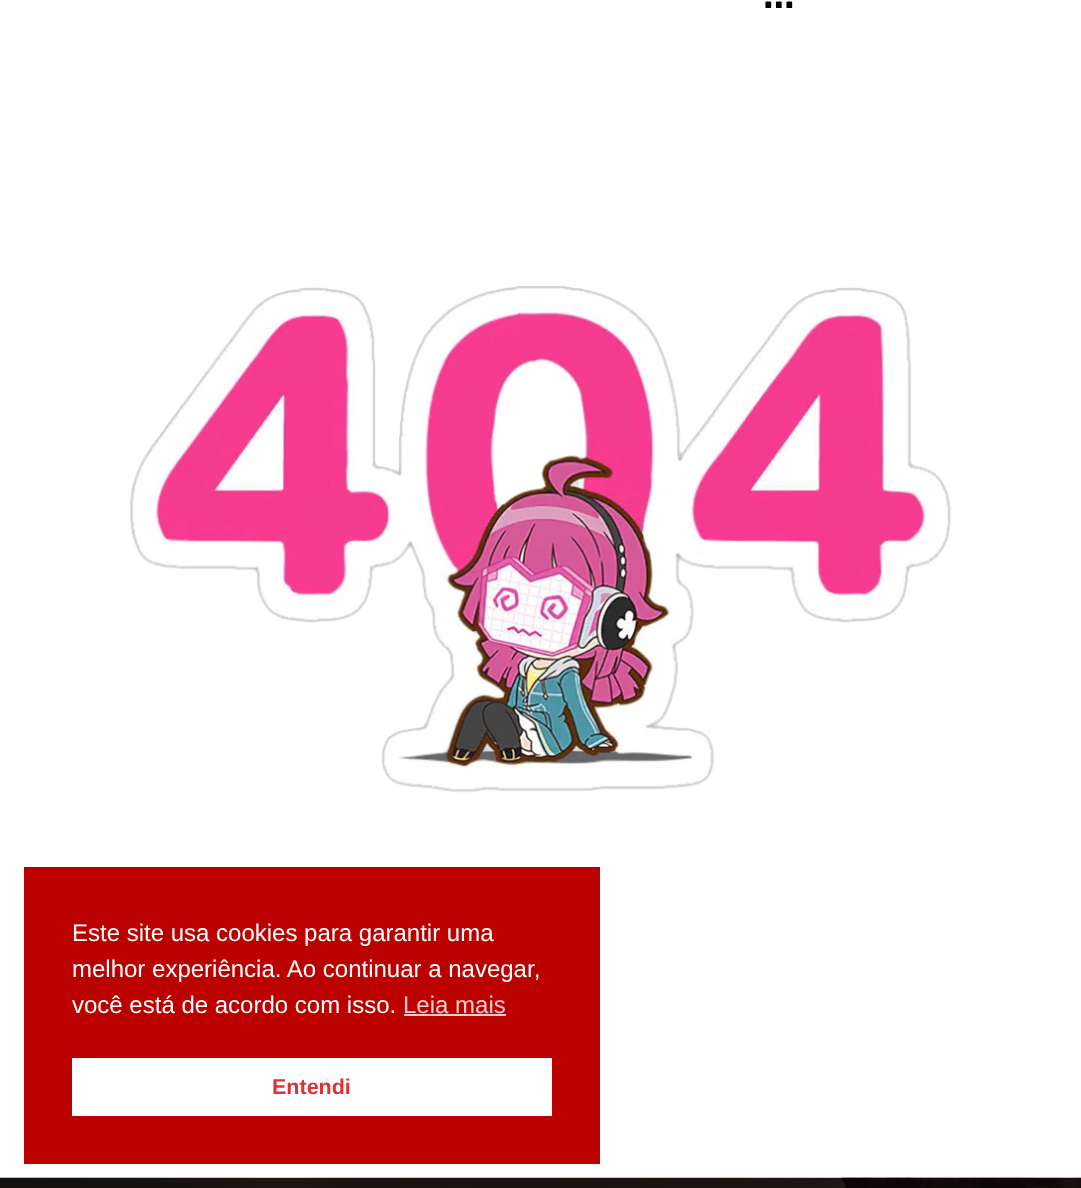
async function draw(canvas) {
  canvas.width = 1081
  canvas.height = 1188
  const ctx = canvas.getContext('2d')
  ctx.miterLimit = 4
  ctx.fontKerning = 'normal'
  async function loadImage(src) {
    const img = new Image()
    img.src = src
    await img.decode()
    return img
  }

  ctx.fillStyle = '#fff'
  ctx.fillRect(0, 0, 1081, 1188)
  ctx.font = 'bold 45px Exo'
  ctx.fillStyle = '#000'
  ctx.fillText('...', 763, 8)
  ctx.drawImage(await loadImage('image0.png'), 129, 285, 822, 508)
  ctx.drawImage(await loadImage('image1.png'), 0, 1177, 1081, 11)
  ctx.fillStyle = '#b00'
  ctx.fillRect(24, 867, 576, 297)
  ctx.font = '24px Liberation Sans'
  ctx.fillStyle = '#fff'
  ctx.fillText('Este site usa cookies para garantir uma', 72, 941)
  ctx.fillText('melhor experiência. Ao continuar a navegar,', 72, 977)
  ctx.fillText('você está de acordo com isso.', 72, 1013)
  ctx.fillStyle = '#f1cccc'
  ctx.fillText('Leia mais', 403, 1013)
  ctx.fillRect(404, 1014, 102, 2)
  ctx.fillStyle = '#fff'
  ctx.fillRect(72, 1058, 480, 58)
  ctx.font = 'bold 21.5px Liberation Sans'
  ctx.fillStyle = '#d33'
  ctx.fillText('Entendi', 272, 1094)
}

draw(document.querySelector('canvas'))
